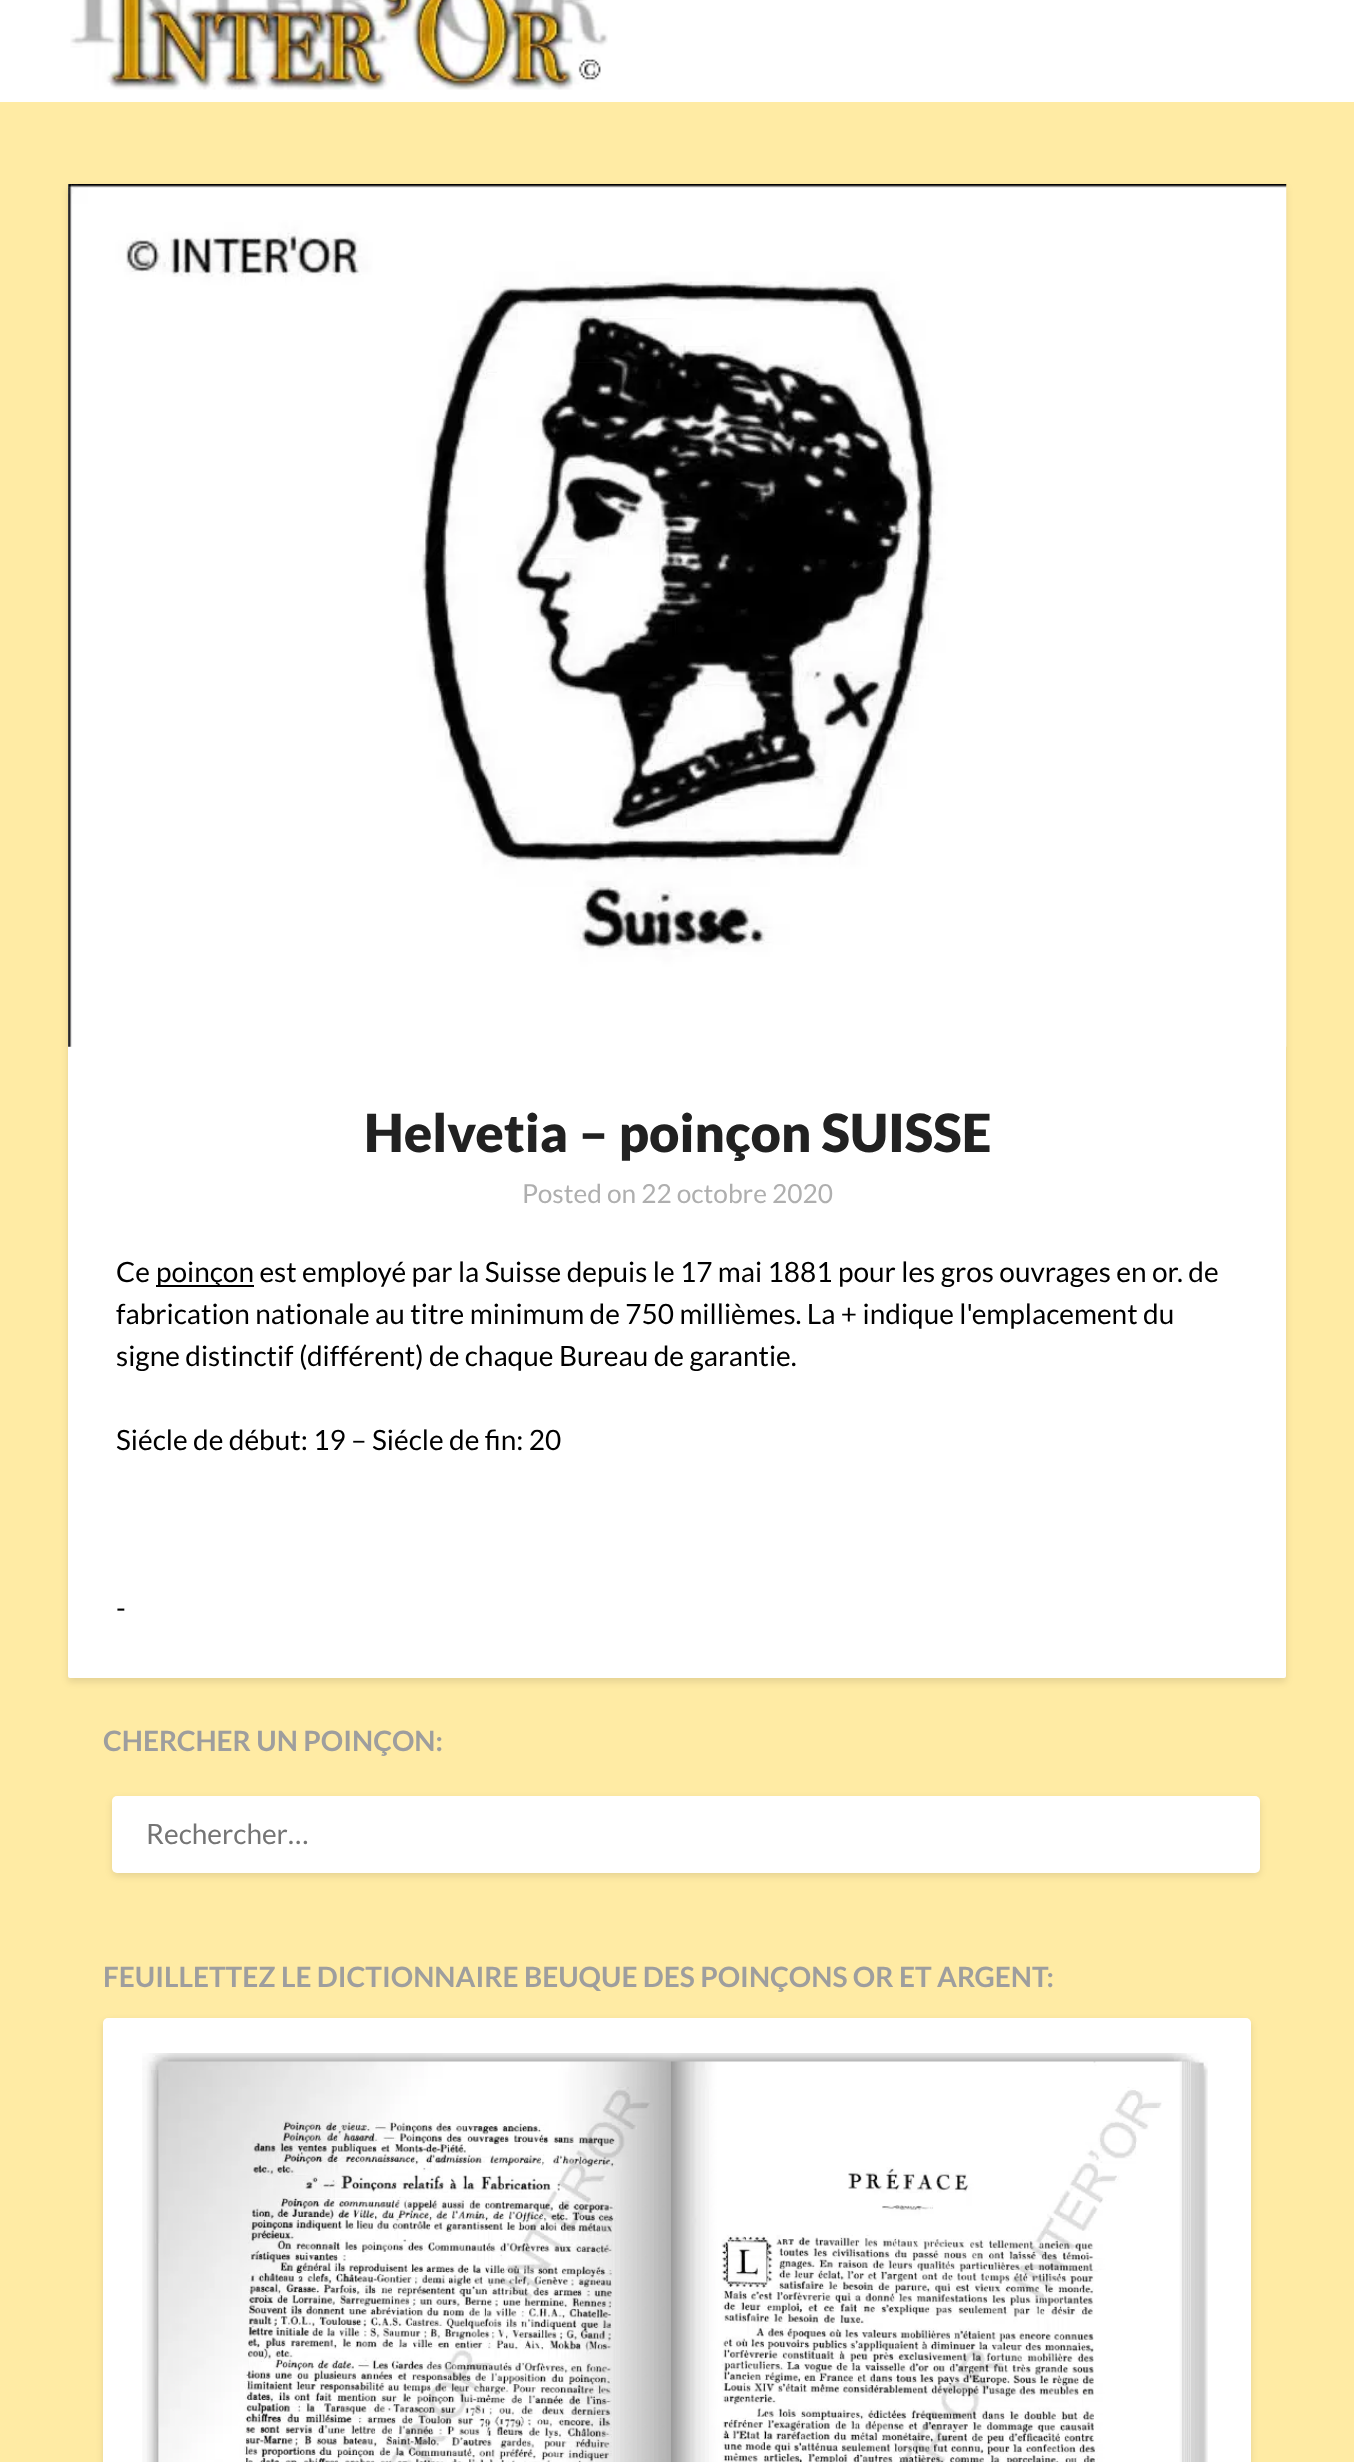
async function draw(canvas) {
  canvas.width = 1354
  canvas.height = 2462
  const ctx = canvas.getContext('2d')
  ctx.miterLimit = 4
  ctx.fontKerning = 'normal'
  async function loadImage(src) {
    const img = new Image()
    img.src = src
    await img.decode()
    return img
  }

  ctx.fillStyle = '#ffeba4'
  ctx.fillRect(0, 0, 1354, 2462)
  ctx.fillStyle = '#fff'
  ctx.fillRect(0, 0, 1354, 102)
  ctx.drawImage(await loadImage('image0.png'), 70, 0, 538, 90)
  ctx.fillStyle = '#0000001a'
  ctx.filter = 'blur(3.5px)'
  ctx.beginPath()
  ctx.roundRect(68, 187, 1218, 1495, 2)
  ctx.fill()
  ctx.filter = 'none'
  ctx.fillStyle = '#fff'
  ctx.beginPath()
  ctx.roundRect(68, 184, 1218, 1494, 2)
  ctx.fill()
  ctx.drawImage(await loadImage('image1.png'), 68, 184, 1219, 863)
  ctx.font = '900 52.5px Lato'
  ctx.fillStyle = '#212121'
  ctx.fillText('Helvetia – poinçon SUISSE', 364, 1152)
  ctx.font = '26.25px Lato'
  ctx.fillStyle = '#afafaf'
  ctx.fillText('Posted on 22 octobre 2020', 522, 1203)
  ctx.font = '28px Lato'
  ctx.fillStyle = '#000'
  ctx.fillText('Ce', 116, 1282)
  ctx.fillRect(156, 1285, 98, 2)
  ctx.fillText('poinçon est employé par la Suisse depuis le 17 mai 1881 pour les gros ouvrages en or. de', 156, 1282)
  ctx.fillText('fabrication nationale au titre minimum de 750 millièmes. La + indique l\'emplacement du', 116, 1324)
  ctx.fillText('signe distinctif (différent) de chaque Bureau de garantie.', 116, 1366)
  ctx.fillText('Siécle de début: 19 – Siécle de fin: 20', 116, 1450)
  ctx.fillText('-', 116, 1618)
  ctx.font = 'bold 28px Lato'
  ctx.fillStyle = '#9e9e9e'
  ctx.fillText('CHERCHER UN POINÇON:', 103, 1751)
  ctx.fillStyle = '#0000001a'
  ctx.filter = 'blur(3.5px)'
  ctx.beginPath()
  ctx.roundRect(112, 1799, 1148, 77, 5)
  ctx.fill()
  ctx.filter = 'none'
  ctx.fillStyle = '#fff'
  ctx.beginPath()
  ctx.roundRect(112, 1796, 1148, 77, 5)
  ctx.fill()
  ctx.font = '28px Lato'
  ctx.fillStyle = '#757575'
  ctx.fillText('Rechercher…', 146, 1844)
  ctx.font = 'bold 28px Lato'
  ctx.fillStyle = '#9e9e9e'
  ctx.fillText('FEUILLETTEZ LE DICTIONNAIRE BEUQUE DES POINÇONS OR ET ARGENT:', 103, 1987)
  ctx.fillStyle = '#0000001a'
  ctx.filter = 'blur(3.5px)'
  ctx.beginPath()
  ctx.roundRect(103, 2021, 1148, 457, 5)
  ctx.fill()
  ctx.filter = 'none'
  ctx.fillStyle = '#fff'
  ctx.beginPath()
  ctx.roundRect(103, 2018, 1148, 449, 5)
  ctx.fill()
  ctx.drawImage(await loadImage('image2.png'), 142, 2053, 1066, 409)
}

draw(document.querySelector('canvas'))
